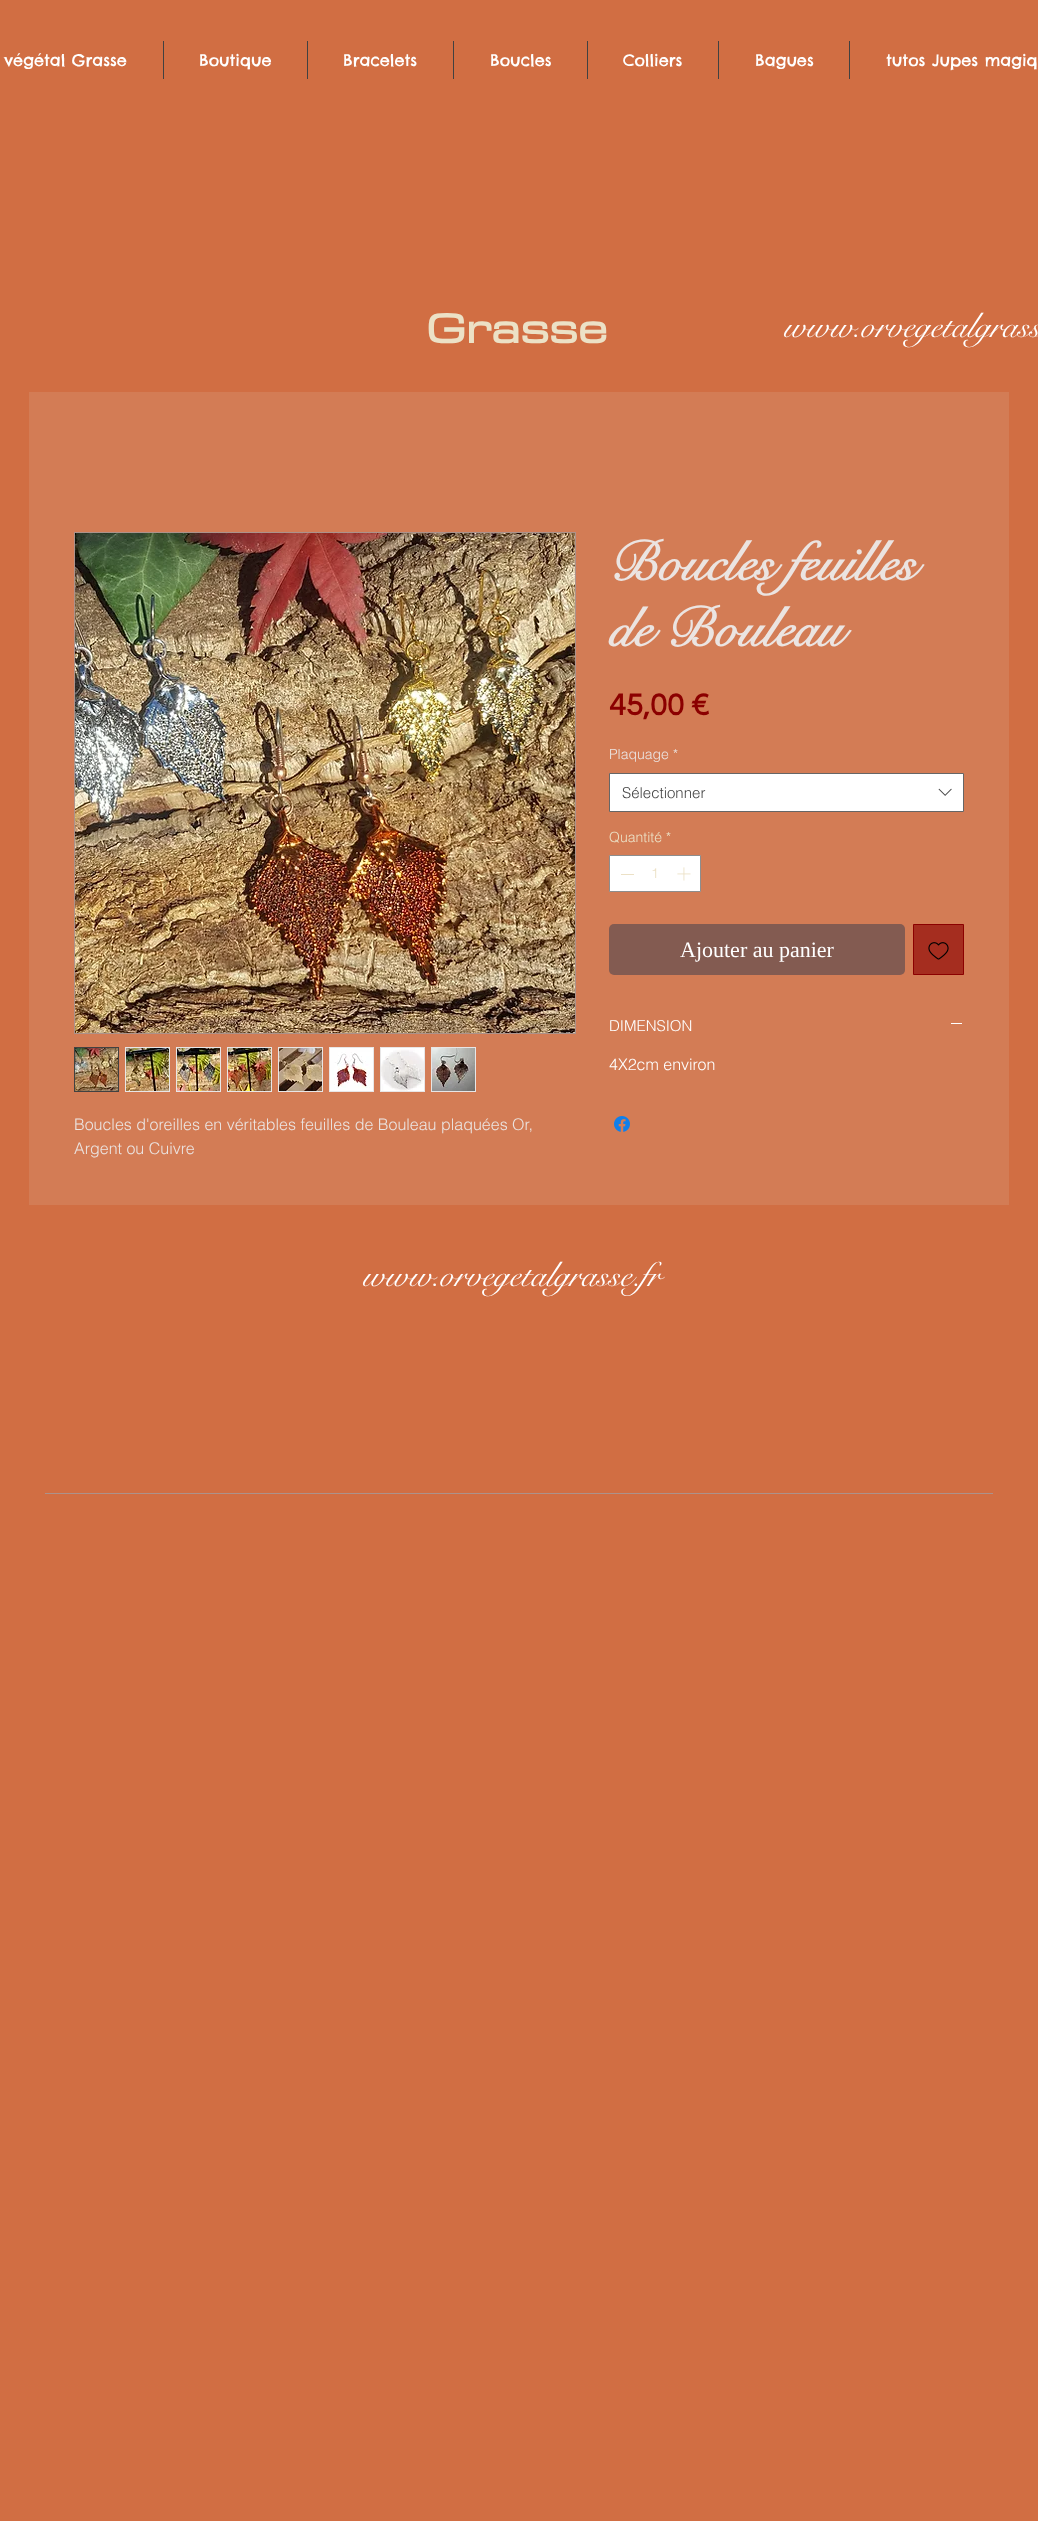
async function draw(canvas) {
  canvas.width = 1038
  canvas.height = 2521
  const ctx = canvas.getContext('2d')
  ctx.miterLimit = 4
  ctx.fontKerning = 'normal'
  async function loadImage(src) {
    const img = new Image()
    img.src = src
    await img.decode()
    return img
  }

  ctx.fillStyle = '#d16e43'
  ctx.fillRect(0, 0, 1038, 2521)
  ctx.font = '16px Chelsea Market'
  ctx.fillStyle = '#fff'
  ctx.fillText('végétal Grasse', 4, 66)
  ctx.fillStyle = '#414141'
  ctx.fillRect(163, 41, 1, 38)
  ctx.fillStyle = '#fff'
  ctx.fillText('Boutique', 199, 66)
  ctx.fillStyle = '#414141'
  ctx.fillRect(307, 41, 1, 38)
  ctx.fillStyle = '#fff'
  ctx.fillText('Bracelets', 343, 66)
  ctx.fillStyle = '#414141'
  ctx.fillRect(453, 41, 1, 38)
  ctx.fillStyle = '#fff'
  ctx.fillText('Boucles', 490, 66)
  ctx.fillStyle = '#414141'
  ctx.fillRect(587, 41, 1, 38)
  ctx.fillStyle = '#fff'
  ctx.fillText('Colliers', 623, 66)
  ctx.fillStyle = '#414141'
  ctx.fillRect(718, 41, 1, 38)
  ctx.fillStyle = '#fff'
  ctx.fillText('Bagues', 755, 66)
  ctx.fillStyle = '#414141'
  ctx.fillRect(849, 41, 1, 38)
  ctx.fillStyle = '#fff'
  ctx.fillText('tutos Jupes magiq', 886, 66)
  ctx.font = 'bold 50px "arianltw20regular"'
  ctx.fillStyle = '#ece1c6'
  ctx.fillText('Grasse', 426, 343)
  ctx.font = '35px "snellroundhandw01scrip"'
  ctx.fillStyle = '#fff'
  ctx.fillText('www.orvegetalgrass', 784, 337)
  ctx.fillStyle = '#d37c55'
  ctx.fillRect(29, 392, 980, 813)
  ctx.font = 'bold 55px "snellroundhandw01scrip"'
  ctx.fillStyle = '#ebe4e1'
  ctx.fillText('Boucles feuilles', 609, 580)
  ctx.fillText('de Bouleau', 609, 646)
  ctx.font = 'bold 31px Questrial'
  ctx.fillStyle = '#8b0000'
  ctx.fillText('45,00 €', 609, 715)
  ctx.font = '300 14px helvetica'
  ctx.fillStyle = '#ebe4e1'
  ctx.fillText('Plaquage *', 609, 759)
  ctx.fillStyle = '#fff'
  ctx.beginPath()
  ctx.rect(609.5, 773.5, 354, 38)
  ctx.fill()
  ctx.strokeStyle = '#666'
  ctx.stroke()
  ctx.font = '300 15px helvetica'
  ctx.fillStyle = '#444'
  ctx.fillText('Sélectionner', 622, 798)
  ctx.drawImage(await loadImage('image0.png'), 938, 788, 14, 8)
  ctx.font = '300 14px helvetica'
  ctx.fillStyle = '#ece1c6'
  ctx.fillText('Quantité *', 609, 842)
  ctx.fillStyle = '#fff'
  ctx.beginPath()
  ctx.rect(609.5, 855.5, 91, 36)
  ctx.fill()
  ctx.strokeStyle = '#8d8d8d'
  ctx.stroke()
  ctx.fillStyle = '#ece1c6'
  ctx.fillRect(621, 874, 13, 1)
  ctx.fillText('1', 651, 878)
  ctx.drawImage(await loadImage('image1.png'), 677, 867, 14, 14)
  ctx.fillStyle = '#835b51'
  ctx.beginPath()
  ctx.roundRect(609, 924, 296, 51, 5)
  ctx.fill()
  ctx.font = '22px Liberation Serif'
  ctx.fillStyle = '#fff'
  ctx.fillText('Ajouter au panier', 680, 957)
  ctx.fillStyle = '#a52d1f'
  ctx.beginPath()
  ctx.rect(913.5, 924.5, 50, 50)
  ctx.fill()
  ctx.strokeStyle = '#8b0000'
  ctx.stroke()
  ctx.drawImage(await loadImage('image2.png'), 928, 942, 21, 18)
  ctx.font = '300 15px helvetica'
  ctx.fillStyle = '#fff'
  ctx.fillText('DIMENSION', 609, 1031)
  ctx.fillRect(951, 1023, 11, 1)
  ctx.font = '300 16px helvetica'
  ctx.fillText('4X2cm environ', 609, 1070)
  ctx.drawImage(await loadImage('image3.png'), 614, 1116, 16, 16)
  ctx.strokeStyle = '#ac928b'
  ctx.strokeRect(74.5, 532.5, 501, 501)
  ctx.drawImage(await loadImage('image4.png'), 75, 533, 500, 500)
  ctx.strokeStyle = '#414141'
  ctx.strokeRect(74.5, 1047.5, 44, 44)
  ctx.drawImage(await loadImage('image5.png'), 75, 1048, 43, 43)
  ctx.fillStyle = '#e8e6e6'
  ctx.fillRect(125, 1047, 45, 45)
  ctx.drawImage(await loadImage('image6.png'), 126, 1048, 43, 43)
  ctx.fillRect(176, 1047, 45, 45)
  ctx.drawImage(await loadImage('image7.png'), 177, 1048, 43, 43)
  ctx.fillRect(227, 1047, 45, 45)
  ctx.drawImage(await loadImage('image8.png'), 228, 1048, 43, 43)
  ctx.fillRect(278, 1047, 45, 45)
  ctx.drawImage(await loadImage('image9.png'), 279, 1048, 43, 43)
  ctx.fillRect(329, 1047, 45, 45)
  ctx.drawImage(await loadImage('image10.png'), 330, 1048, 43, 43)
  ctx.fillRect(380, 1047, 45, 45)
  ctx.drawImage(await loadImage('image11.png'), 381, 1048, 43, 43)
  ctx.fillRect(431, 1047, 45, 45)
  ctx.drawImage(await loadImage('image12.png'), 432, 1048, 43, 43)
  ctx.fillStyle = '#ebe4e1'
  ctx.fillText('Boucles d\'oreilles en véritables feuilles de Bouleau plaquées Or,', 74, 1130)
  ctx.fillText('Argent ou Cuivre', 74, 1154)
  ctx.font = '35px "snellroundhandw01scrip"'
  ctx.fillStyle = '#fff'
  ctx.fillText('www.orvegetalgrasse.fr', 363, 1286)
  ctx.fillStyle = '#ac928b'
  ctx.fillRect(45, 1493, 948, 1)
}

draw(document.querySelector('canvas'))
